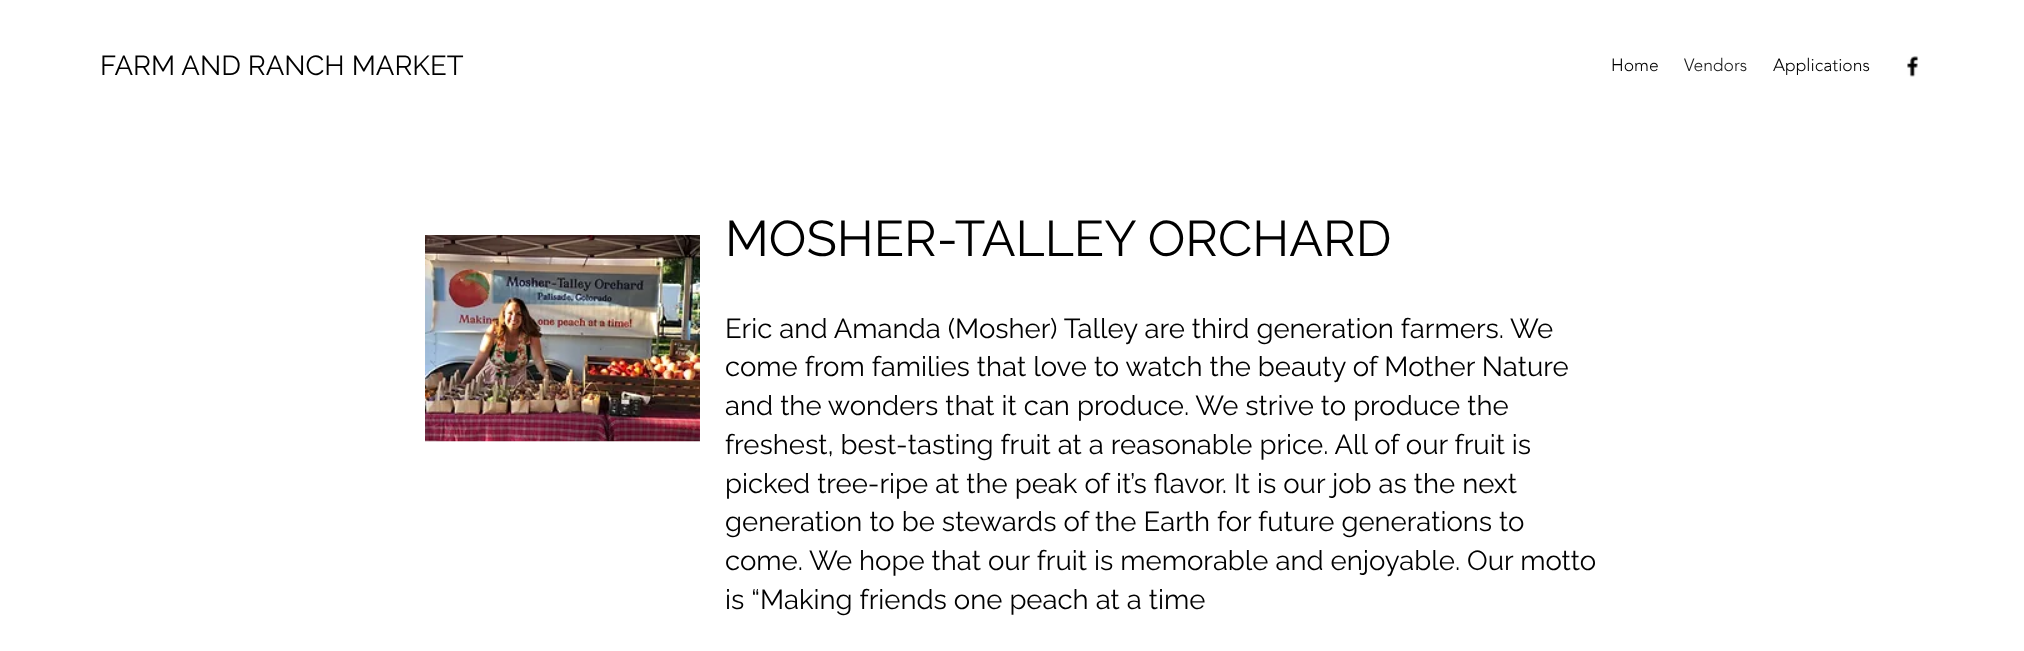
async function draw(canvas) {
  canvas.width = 2024
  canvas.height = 651
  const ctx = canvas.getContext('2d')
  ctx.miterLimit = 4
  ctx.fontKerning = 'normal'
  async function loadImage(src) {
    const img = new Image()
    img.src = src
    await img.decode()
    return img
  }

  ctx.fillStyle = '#fff'
  ctx.fillRect(0, 0, 2024, 651)
  ctx.font = '27.5px Raleway'
  ctx.fillStyle = '#000'
  ctx.fillText('FARM AND RANCH MARKET', 100, 75)
  ctx.font = '300 17.5px "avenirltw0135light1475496"'
  ctx.fillText('Home', 1611, 71)
  ctx.fillStyle = '#191919'
  ctx.fillText('Vendors', 1684, 71)
  ctx.fillStyle = '#000'
  ctx.fillText('Applications', 1773, 71)
  ctx.drawImage(await loadImage('image0.png'), 1907, 56, 12, 21)
  ctx.drawImage(await loadImage('image1.png'), 425, 235, 275, 207)
  ctx.font = '50px Raleway'
  ctx.fillText('MOSHER-TALLEY ORCHARD', 725, 256)
  ctx.font = '27.5px Raleway'
  ctx.fillText('Eric and Amanda (Mosher) Talley are third generation farmers. We', 725, 338)
  ctx.fillText('come from families that love to watch the beauty of Mother Nature', 725, 376)
  ctx.fillText('and the wonders that it can produce. We strive to produce the', 725, 415)
  ctx.fillText('freshest, best-tasting fruit at a reasonable price. All of our fruit is', 725, 454)
  ctx.fillText('picked tree-ripe at the peak of it’s flavor. It is our job as the next', 725, 493)
  ctx.fillText('generation to be stewards of the Earth for future generations to', 725, 531)
  ctx.fillText('come. We hope that our fruit is memorable and enjoyable. Our motto', 725, 570)
  ctx.fillText('is “Making friends one peach at a time', 725, 609)
}

draw(document.querySelector('canvas'))
